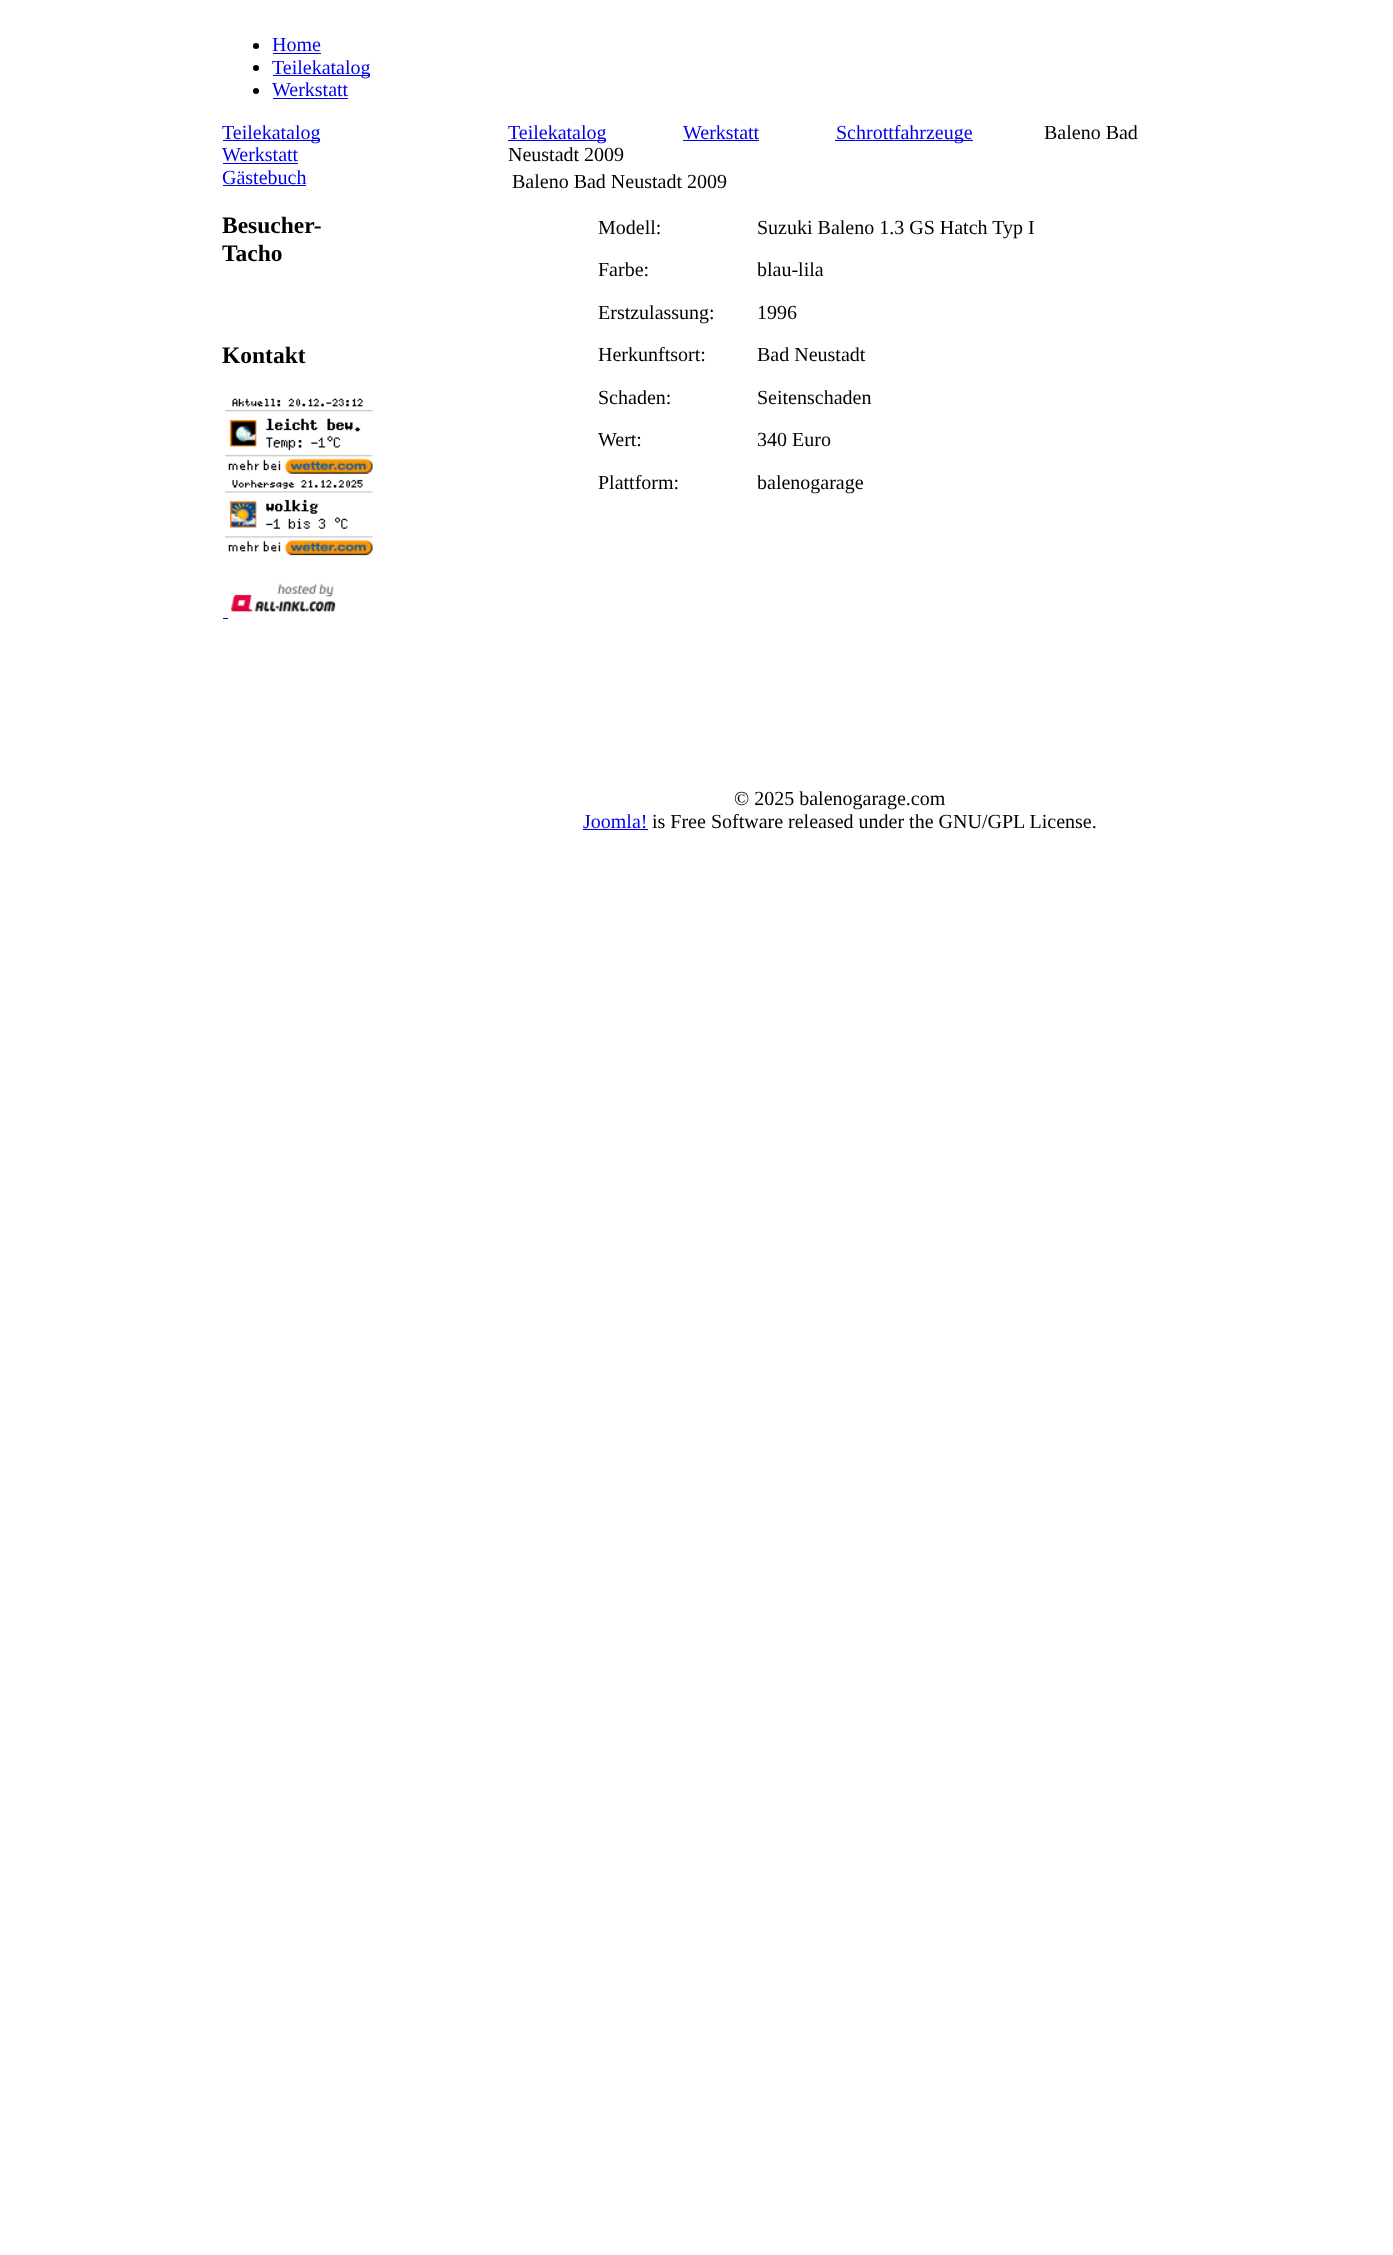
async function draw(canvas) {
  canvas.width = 1393
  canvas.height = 2255
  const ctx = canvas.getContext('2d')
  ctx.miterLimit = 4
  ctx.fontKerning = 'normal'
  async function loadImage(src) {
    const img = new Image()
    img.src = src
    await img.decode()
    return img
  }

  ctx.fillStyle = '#fff'
  ctx.fillRect(0, 0, 1393, 2255)
  ctx.fillStyle = '#000'
  ctx.beginPath()
  ctx.arc(256, 46, 3, 0, 2 * Math.PI)
  ctx.fill()
  ctx.font = '20px Liberation Serif'
  ctx.fillStyle = '#00e'
  ctx.fillText('Home', 272, 51)
  ctx.fillRect(273, 53, 48, 1)
  ctx.fillStyle = '#000'
  ctx.beginPath()
  ctx.arc(256, 68, 3, 0, 2 * Math.PI)
  ctx.fill()
  ctx.fillStyle = '#00e'
  ctx.fillRect(273, 75, 97, 1)
  ctx.fillText('Teilekatalog', 272, 74)
  ctx.fillStyle = '#000'
  ctx.beginPath()
  ctx.arc(256, 91, 3, 0, 2 * Math.PI)
  ctx.fill()
  ctx.fillStyle = '#00e'
  ctx.fillText('Werkstatt', 272, 96)
  ctx.fillRect(273, 98, 75, 1)
  ctx.fillRect(223, 140, 97, 1)
  ctx.fillText('Teilekatalog', 222, 139)
  ctx.fillText('Werkstatt', 222, 161)
  ctx.fillRect(223, 163, 75, 1)
  ctx.fillText('Gästebuch', 222, 184)
  ctx.fillRect(223, 185, 83, 1)
  ctx.font = 'bold 23.5px Liberation Serif'
  ctx.fillStyle = '#000'
  ctx.fillText('Besucher-', 222, 233)
  ctx.fillText('Tacho', 222, 261)
  ctx.fillText('Kontakt', 222, 363)
  ctx.drawImage(await loadImage('image0.png'), 225, 398, 148, 76)
  ctx.drawImage(await loadImage('image1.png'), 225, 479, 148, 77)
  ctx.drawImage(await loadImage('image2.png'), 231, 583, 105, 29)
  ctx.fillStyle = '#00e'
  ctx.fillRect(223, 618, 5, 1)
  ctx.fillRect(508, 140, 98, 1)
  ctx.font = '20px Liberation Serif'
  ctx.fillText('Teilekatalog', 508, 139)
  ctx.fillText('Werkstatt', 683, 139)
  ctx.fillRect(683, 140, 76, 1)
  ctx.fillRect(835, 140, 138, 1)
  ctx.fillText('Schrottfahrzeuge', 836, 139)
  ctx.fillStyle = '#000'
  ctx.fillText('Baleno Bad', 1044, 139)
  ctx.fillText('Neustadt 2009', 508, 161)
  ctx.fillText('Baleno Bad Neustadt 2009', 512, 188)
  ctx.fillText('Modell:', 598, 234)
  ctx.fillText('Farbe:', 598, 276)
  ctx.fillText('Erstzulassung:', 598, 319)
  ctx.fillText('Herkunftsort:', 598, 361)
  ctx.fillText('Schaden:', 598, 404)
  ctx.fillText('Wert:', 598, 446)
  ctx.fillText('Plattform:', 598, 489)
  ctx.fillText('Suzuki Baleno 1.3 GS Hatch Typ I', 757, 234)
  ctx.fillText('blau-lila', 757, 276)
  ctx.fillText('1996', 757, 319)
  ctx.fillText('Bad Neustadt', 757, 361)
  ctx.fillText('Seitenschaden', 757, 404)
  ctx.fillText('340 Euro', 757, 446)
  ctx.fillText('balenogarage', 757, 489)
  ctx.fillText('© 2025 balenogarage.com', 734, 805)
  ctx.fillStyle = '#00e'
  ctx.fillText('Joomla!', 583, 828)
  ctx.fillRect(583, 829, 65, 1)
  ctx.fillStyle = '#000'
  ctx.fillText('is Free Software released under the GNU/GPL License.', 652, 828)
}

draw(document.querySelector('canvas'))
